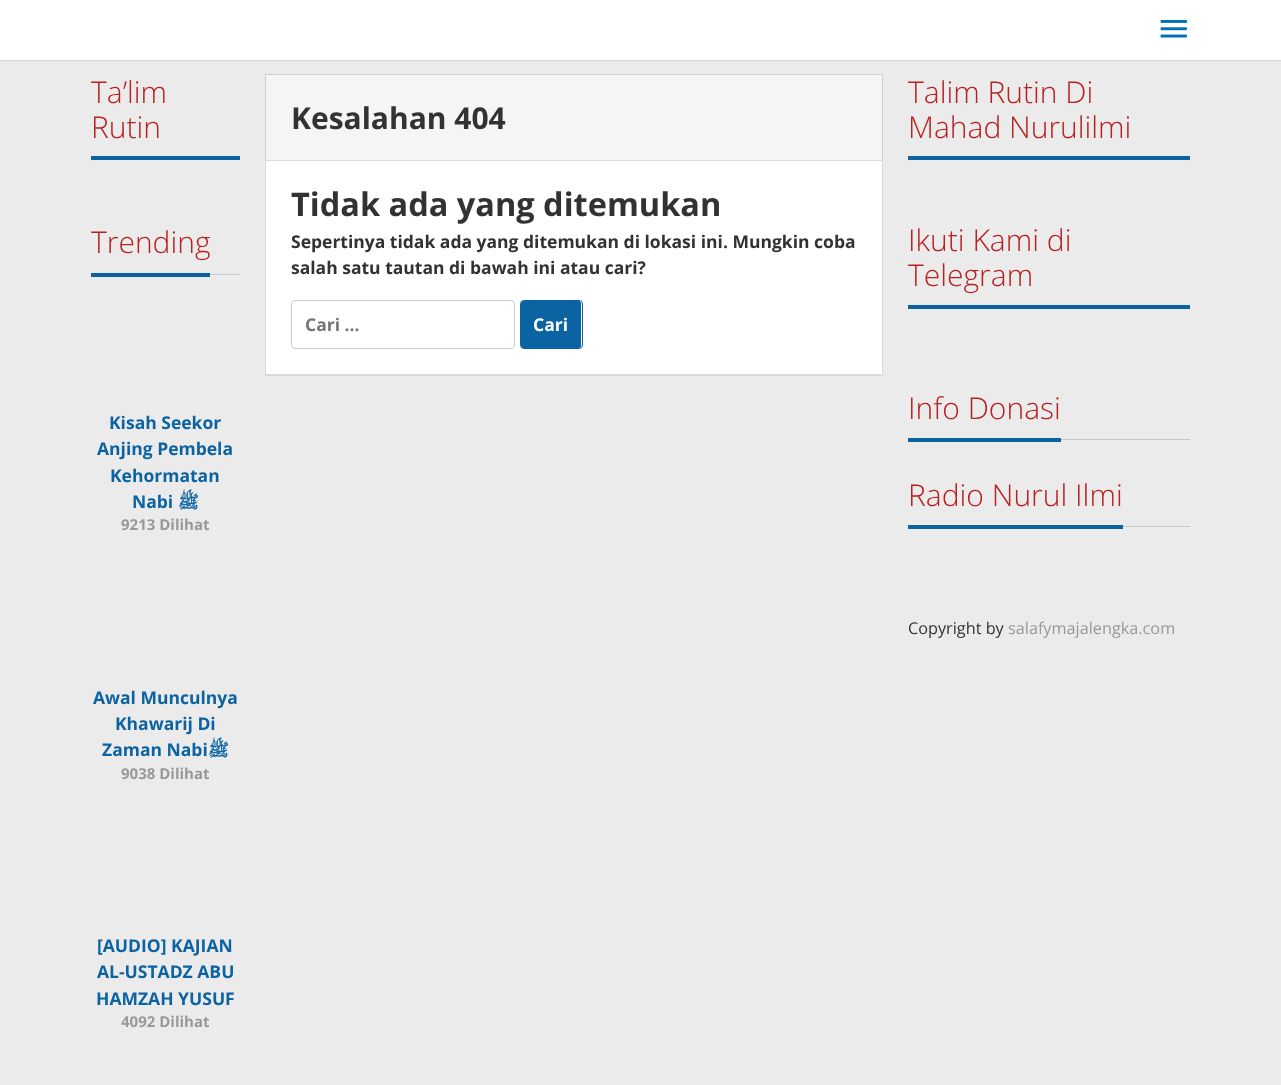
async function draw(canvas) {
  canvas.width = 1281
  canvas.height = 1085
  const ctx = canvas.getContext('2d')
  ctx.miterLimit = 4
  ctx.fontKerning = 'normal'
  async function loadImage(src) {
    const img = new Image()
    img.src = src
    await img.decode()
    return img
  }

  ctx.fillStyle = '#ebebeb'
  ctx.fillRect(0, 0, 1281, 1085)
  ctx.fillStyle = '#fff'
  ctx.fillRect(0, 0, 1281, 60)
  ctx.fillStyle = '#d9d9d9'
  ctx.fillRect(0, 60, 1281, 1)
  ctx.drawImage(await loadImage('image0.png'), 1160, 20, 27, 18)
  ctx.fillStyle = '#0b63a1'
  ctx.fillRect(91, 156, 149, 4)
  ctx.font = '300 30px Open Sans'
  ctx.fillStyle = '#b9201f'
  ctx.fillText('Ta’lim', 91, 103)
  ctx.fillText('Rutin', 91, 138)
  ctx.fillStyle = '#c8c8c8'
  ctx.fillRect(210, 274, 30, 1)
  ctx.fillStyle = '#0b63a1'
  ctx.fillRect(91, 273, 119, 4)
  ctx.fillStyle = '#b9201f'
  ctx.fillText('Trending', 91, 253)
  ctx.font = 'bold 17.5px Open Sans'
  ctx.fillStyle = '#0b63a1'
  ctx.fillText('Kisah Seekor', 109, 429)
  ctx.fillText('Anjing Pembela', 97, 455)
  ctx.fillText('Kehormatan', 110, 482)
  ctx.fillText('Nabi', 132, 508)
  ctx.direction = 'rtl'
  ctx.font = 'bold 17.5px Lateef'
  ctx.fillText('ﷺ', 199, 508)
  ctx.direction = 'ltr'
  ctx.font = 'bold 15px Open Sans'
  ctx.fillStyle = '#999'
  ctx.fillText('9213 Dilihat', 121, 530)
  ctx.font = 'bold 17.5px Open Sans'
  ctx.fillStyle = '#0b63a1'
  ctx.fillText('Awal Munculnya', 93, 704)
  ctx.fillText('Khawarij Di', 115, 730)
  ctx.fillText('Zaman Nabi', 102, 756)
  ctx.direction = 'rtl'
  ctx.font = 'bold 17.5px Lateef'
  ctx.fillText('ﷺ', 229, 756)
  ctx.direction = 'ltr'
  ctx.font = 'bold 15px Open Sans'
  ctx.fillStyle = '#999'
  ctx.fillText('9038 Dilihat', 121, 779)
  ctx.font = 'bold 17.5px Open Sans'
  ctx.fillStyle = '#0b63a1'
  ctx.fillText('[AUDIO] KAJIAN', 97, 952)
  ctx.fillText('AL-USTADZ ABU', 97, 978)
  ctx.fillText('HAMZAH YUSUF', 96, 1005)
  ctx.font = 'bold 15px Open Sans'
  ctx.fillStyle = '#999'
  ctx.fillText('4092 Dilihat', 121, 1027)
  ctx.fillStyle = '#f5f5f5'
  ctx.beginPath()
  ctx.rect(265.5, 74.5, 617, 86)
  ctx.fill()
  ctx.strokeStyle = '#d0d0d0'
  ctx.stroke()
  ctx.font = 'bold 30px Open Sans'
  ctx.fillStyle = '#323233'
  ctx.fillText('Kesalahan 404', 291, 129)
  ctx.fillStyle = '#fff'
  ctx.beginPath()
  ctx.rect(265.5, 160.5, 617, 215)
  ctx.fill()
  ctx.strokeStyle = '#d9d9d9'
  ctx.stroke()
  ctx.fillStyle = '#d9d9d9'
  ctx.fillRect(266, 374, 615, 1)
  ctx.font = 'bold 32.5px Open Sans'
  ctx.fillStyle = '#323233'
  ctx.fillText('Tidak ada yang ditemukan', 291, 216)
  ctx.font = 'bold 17.5px Open Sans'
  ctx.fillText('Sepertinya tidak ada yang ditemukan di lokasi ini. Mungkin coba', 291, 248)
  ctx.fillText('salah satu tautan di bawah ini atau cari?', 291, 274)
  ctx.beginPath()
  ctx.roundRect(291.5, 300.5, 223, 48, 3.5)
  ctx.strokeStyle = '#ccc'
  ctx.stroke()
  ctx.fillStyle = '#757575'
  ctx.fillText('Cari …', 305, 331)
  ctx.fillStyle = '#0b63a1'
  ctx.beginPath()
  ctx.roundRect(521, 301, 60, 47, 2.5)
  ctx.fill()
  ctx.beginPath()
  ctx.roundRect(520.5, 300.5, 62, 48, 3.5)
  ctx.strokeStyle = '#0b63a1'
  ctx.stroke()
  ctx.fillStyle = '#fff'
  ctx.fillText('Cari', 533, 331)
  ctx.fillStyle = '#0b63a1'
  ctx.fillRect(908, 156, 282, 4)
  ctx.font = '300 30px Open Sans'
  ctx.fillStyle = '#b9201f'
  ctx.fillText('Talim Rutin Di', 908, 103)
  ctx.fillText('Mahad Nurulilmi', 908, 138)
  ctx.fillStyle = '#0b63a1'
  ctx.fillRect(908, 305, 282, 4)
  ctx.fillStyle = '#b9201f'
  ctx.fillText('Ikuti Kami di', 908, 251)
  ctx.fillText('Telegram', 908, 286)
  ctx.fillStyle = '#c8c8c8'
  ctx.fillRect(1061, 439, 129, 1)
  ctx.fillStyle = '#0b63a1'
  ctx.fillRect(908, 438, 153, 4)
  ctx.fillStyle = '#b9201f'
  ctx.fillText('Info Donasi', 908, 419)
  ctx.fillStyle = '#c8c8c8'
  ctx.fillRect(1123, 526, 67, 1)
  ctx.fillStyle = '#0b63a1'
  ctx.fillRect(908, 525, 215, 4)
  ctx.fillStyle = '#b9201f'
  ctx.fillText('Radio Nurul Ilmi', 908, 506)
  ctx.font = '16.25px Open Sans'
  ctx.fillStyle = '#323233'
  ctx.fillText('Copyright by', 908, 634)
  ctx.fillStyle = '#999'
  ctx.fillText('salafymajalengka.com', 1008, 634)
}

draw(document.querySelector('canvas'))
